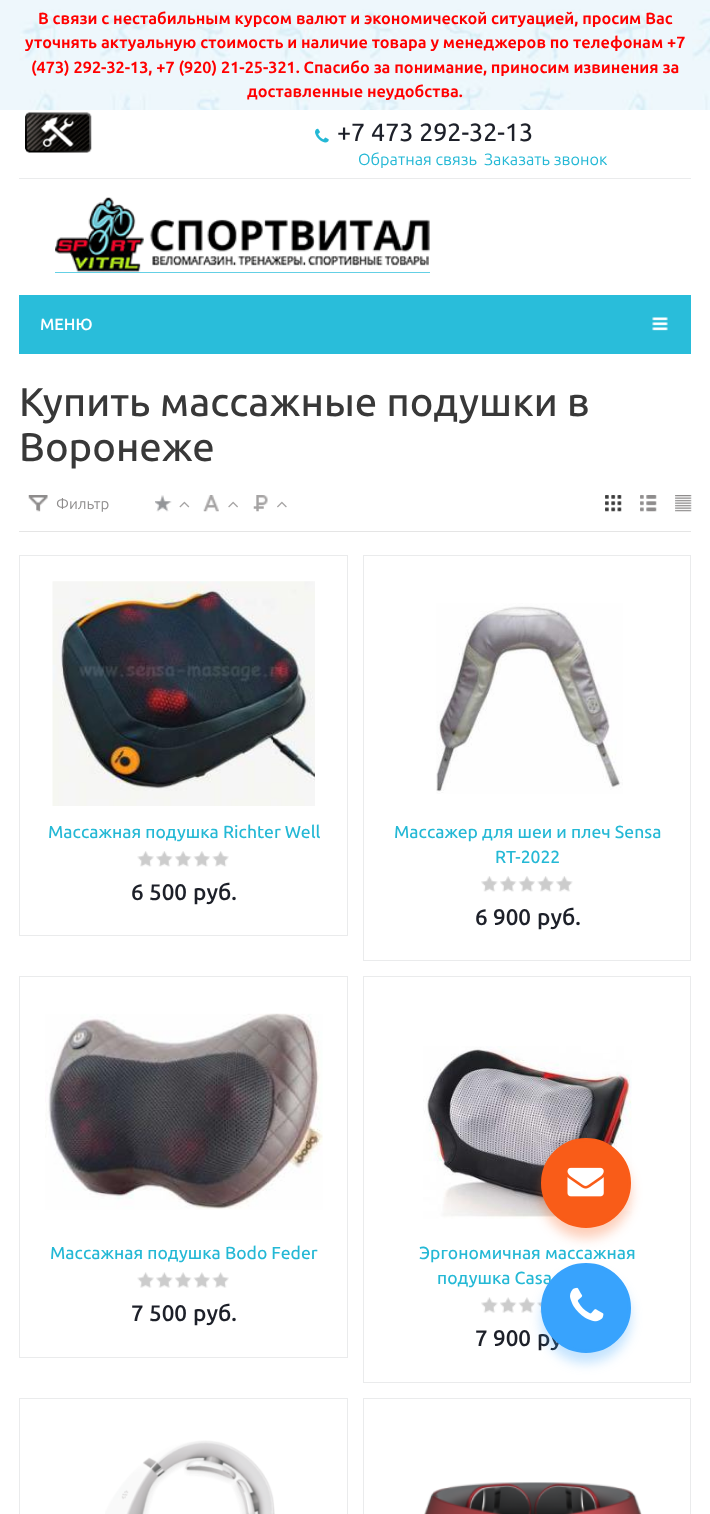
async function draw(canvas) {
  canvas.width = 710
  canvas.height = 1514
  const ctx = canvas.getContext('2d')
  ctx.miterLimit = 4
  ctx.fontKerning = 'normal'
  async function loadImage(src) {
    const img = new Image()
    img.src = src
    await img.decode()
    return img
  }

  ctx.fillStyle = '#fff'
  ctx.fillRect(0, 0, 710, 1514)
  ctx.drawImage(await loadImage('image0.png'), 0, 0, 710, 110)
  ctx.font = 'bold 16.25px Ubuntu'
  ctx.fillStyle = '#f00'
  ctx.fillText('В связи с нестабильным курсом валют и экономической ситуацией, просим Вас', 38, 24)
  ctx.fillText('уточнять актуальную стоимость и наличие товара у менеджеров по телефонам +7', 25, 48)
  ctx.fillText('(473) 292-32-13, +7 (920) 21-25-321. Спасибо за понимание, приносим извинения за', 31, 73)
  ctx.fillText('доставленные неудобства.', 247, 97)
  ctx.drawImage(await loadImage('image1.png'), 25, 112, 67, 41)
  ctx.drawImage(await loadImage('image2.png'), 315, 128, 14, 15)
  ctx.font = '500 25px Ubuntu'
  ctx.fillStyle = '#1d2029'
  ctx.fillText('+7 473 292-32-13', 337, 141)
  ctx.font = '16.25px Ubuntu'
  ctx.fillStyle = '#24b8d5'
  ctx.fillText('Обратная связь', 358, 165)
  ctx.fillText('Заказать звонок', 484, 165)
  ctx.fillStyle = '#eaebec'
  ctx.fillRect(19, 178, 672, 1)
  ctx.fillStyle = '#30c0dc'
  ctx.fillRect(55, 272, 375, 1)
  ctx.drawImage(await loadImage('image3.png'), 55, 197, 375, 76)
  ctx.fillStyle = '#29bdda'
  ctx.fillRect(19, 295, 672, 59)
  ctx.font = '600 16.25px Ubuntu'
  ctx.fillStyle = '#fff'
  ctx.fillText('МЕНЮ', 40, 330)
  ctx.drawImage(await loadImage('image4.png'), 652, 317, 16, 14)
  ctx.font = '500 40px Ubuntu'
  ctx.fillStyle = '#383838'
  ctx.fillText('Купить массажные подушки в', 19, 416)
  ctx.fillText('Воронеже', 19, 461)
  ctx.fillStyle = '#e5e5e5'
  ctx.fillRect(19, 531, 672, 1)
  ctx.drawImage(await loadImage('image5.png'), 155, 495, 17, 17)
  ctx.drawImage(await loadImage('image6.png'), 179, 501, 11, 7)
  ctx.drawImage(await loadImage('image7.png'), 203, 495, 16, 17)
  ctx.drawImage(await loadImage('image8.png'), 228, 501, 10, 7)
  ctx.drawImage(await loadImage('image9.png'), 253, 495, 15, 17)
  ctx.drawImage(await loadImage('image10.png'), 277, 501, 10, 7)
  ctx.drawImage(await loadImage('image11.png'), 605, 495, 17, 17)
  ctx.drawImage(await loadImage('image12.png'), 640, 495, 17, 17)
  ctx.drawImage(await loadImage('image13.png'), 675, 495, 17, 17)
  ctx.drawImage(await loadImage('image14.png'), 28, 495, 20, 17)
  ctx.font = '15px Ubuntu'
  ctx.fillStyle = '#8e8c8c'
  ctx.fillText('Фильтр', 56, 509)
  ctx.strokeStyle = '#eaebec'
  ctx.strokeRect(19.5, 555.5, 328, 380)
  ctx.drawImage(await loadImage('image15.png'), 52, 581, 263, 225)
  ctx.font = '500 17.5px Ubuntu'
  ctx.fillStyle = '#24b8d5'
  ctx.fillText('Массажная подушка Richter Well', 48, 838)
  ctx.drawImage(await loadImage('image16.png'), 137, 851, 17, 16)
  ctx.drawImage(await loadImage('image17.png'), 156, 851, 17, 16)
  ctx.drawImage(await loadImage('image18.png'), 175, 851, 17, 16)
  ctx.drawImage(await loadImage('image19.png'), 193, 851, 17, 16)
  ctx.drawImage(await loadImage('image16.png'), 212, 851, 17, 16)
  ctx.font = '600 22.5px Ubuntu'
  ctx.fillStyle = '#1d2029'
  ctx.fillText('6 500', 131, 900)
  ctx.fillText('руб.', 193, 900)
  ctx.strokeRect(363.5, 555.5, 327, 405)
  ctx.drawImage(await loadImage('image20.png'), 436, 603, 187, 191)
  ctx.font = '500 17.5px Ubuntu'
  ctx.fillStyle = '#24b8d5'
  ctx.fillText('Массажер для шеи и плеч Sensa', 394, 838)
  ctx.fillText('RT-2022', 495, 863)
  ctx.drawImage(await loadImage('image17.png'), 481, 876, 17, 16)
  ctx.drawImage(await loadImage('image21.png'), 500, 876, 17, 16)
  ctx.drawImage(await loadImage('image22.png'), 518, 876, 17, 16)
  ctx.drawImage(await loadImage('image23.png'), 537, 876, 17, 16)
  ctx.drawImage(await loadImage('image17.png'), 556, 876, 17, 16)
  ctx.font = '600 22.5px Ubuntu'
  ctx.fillStyle = '#1d2029'
  ctx.fillText('6 900', 475, 925)
  ctx.fillText('руб.', 537, 925)
  ctx.strokeRect(19.5, 976.5, 328, 381)
  ctx.drawImage(await loadImage('image24.png'), 45, 1013, 278, 197)
  ctx.font = '500 17.5px Ubuntu'
  ctx.fillStyle = '#24b8d5'
  ctx.fillText('Массажная подушка Bodo Feder', 50, 1259)
  ctx.drawImage(await loadImage('image25.png'), 137, 1272, 17, 16)
  ctx.drawImage(await loadImage('image26.png'), 156, 1272, 17, 16)
  ctx.drawImage(await loadImage('image27.png'), 175, 1272, 17, 16)
  ctx.drawImage(await loadImage('image28.png'), 193, 1272, 17, 16)
  ctx.drawImage(await loadImage('image25.png'), 212, 1272, 17, 16)
  ctx.font = '600 22.5px Ubuntu'
  ctx.fillStyle = '#1d2029'
  ctx.fillText('7 500', 131, 1321)
  ctx.fillText('руб.', 193, 1321)
  ctx.strokeRect(363.5, 976.5, 327, 406)
  ctx.drawImage(await loadImage('image29.png'), 423, 1046, 209, 173)
  ctx.font = '500 17.5px Ubuntu'
  ctx.fillStyle = '#24b8d5'
  ctx.fillText('Эргономичная массажная', 419, 1259)
  ctx.fillText('подушка Casa', 437, 1284)
  ctx.drawImage(await loadImage('image26.png'), 481, 1297, 17, 16)
  ctx.drawImage(await loadImage('image30.png'), 500, 1297, 17, 16)
  ctx.drawImage(await loadImage('image31.png'), 518, 1297, 17, 16)
  ctx.drawImage(await loadImage('image32.png'), 537, 1302, 5, 11)
  ctx.font = '600 22.5px Ubuntu'
  ctx.fillStyle = '#1d2029'
  ctx.fillText('7 900', 475, 1346)
  ctx.fillText('ру', 537, 1346)
  ctx.strokeRect(19.5, 1398.5, 328, 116)
  ctx.drawImage(await loadImage('image33.png'), 105, 1440, 170, 74)
  ctx.strokeRect(363.5, 1398.5, 327, 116)
  ctx.drawImage(await loadImage('image34.png'), 424, 1482, 218, 32)
  ctx.fillStyle = '#f95c184d'
  ctx.filter = 'blur(6px)'
  ctx.beginPath()
  ctx.roundRect(541, 1148, 90, 90, 45)
  ctx.fill()
  ctx.filter = 'none'
  ctx.fillStyle = '#f95c18'
  ctx.beginPath()
  ctx.arc(586, 1183, 43.5, 0, 2 * Math.PI)
  ctx.fill()
  ctx.strokeStyle = '#f95c18'
  ctx.lineWidth = 3
  ctx.stroke()
  ctx.drawImage(await loadImage('image35.png'), 567, 1167, 37, 30)
  ctx.fillStyle = '#38a3fd4d'
  ctx.filter = 'blur(6px)'
  ctx.beginPath()
  ctx.roundRect(541, 1273, 90, 90, 45)
  ctx.fill()
  ctx.filter = 'none'
  ctx.fillStyle = '#38a3fd'
  ctx.beginPath()
  ctx.arc(586, 1308, 43.5, 0, 2 * Math.PI)
  ctx.fill()
  ctx.strokeStyle = '#38a3fd'
  ctx.stroke()
  ctx.drawImage(await loadImage('image36.png'), 570, 1287, 34, 35)
}

draw(document.querySelector('canvas'))
